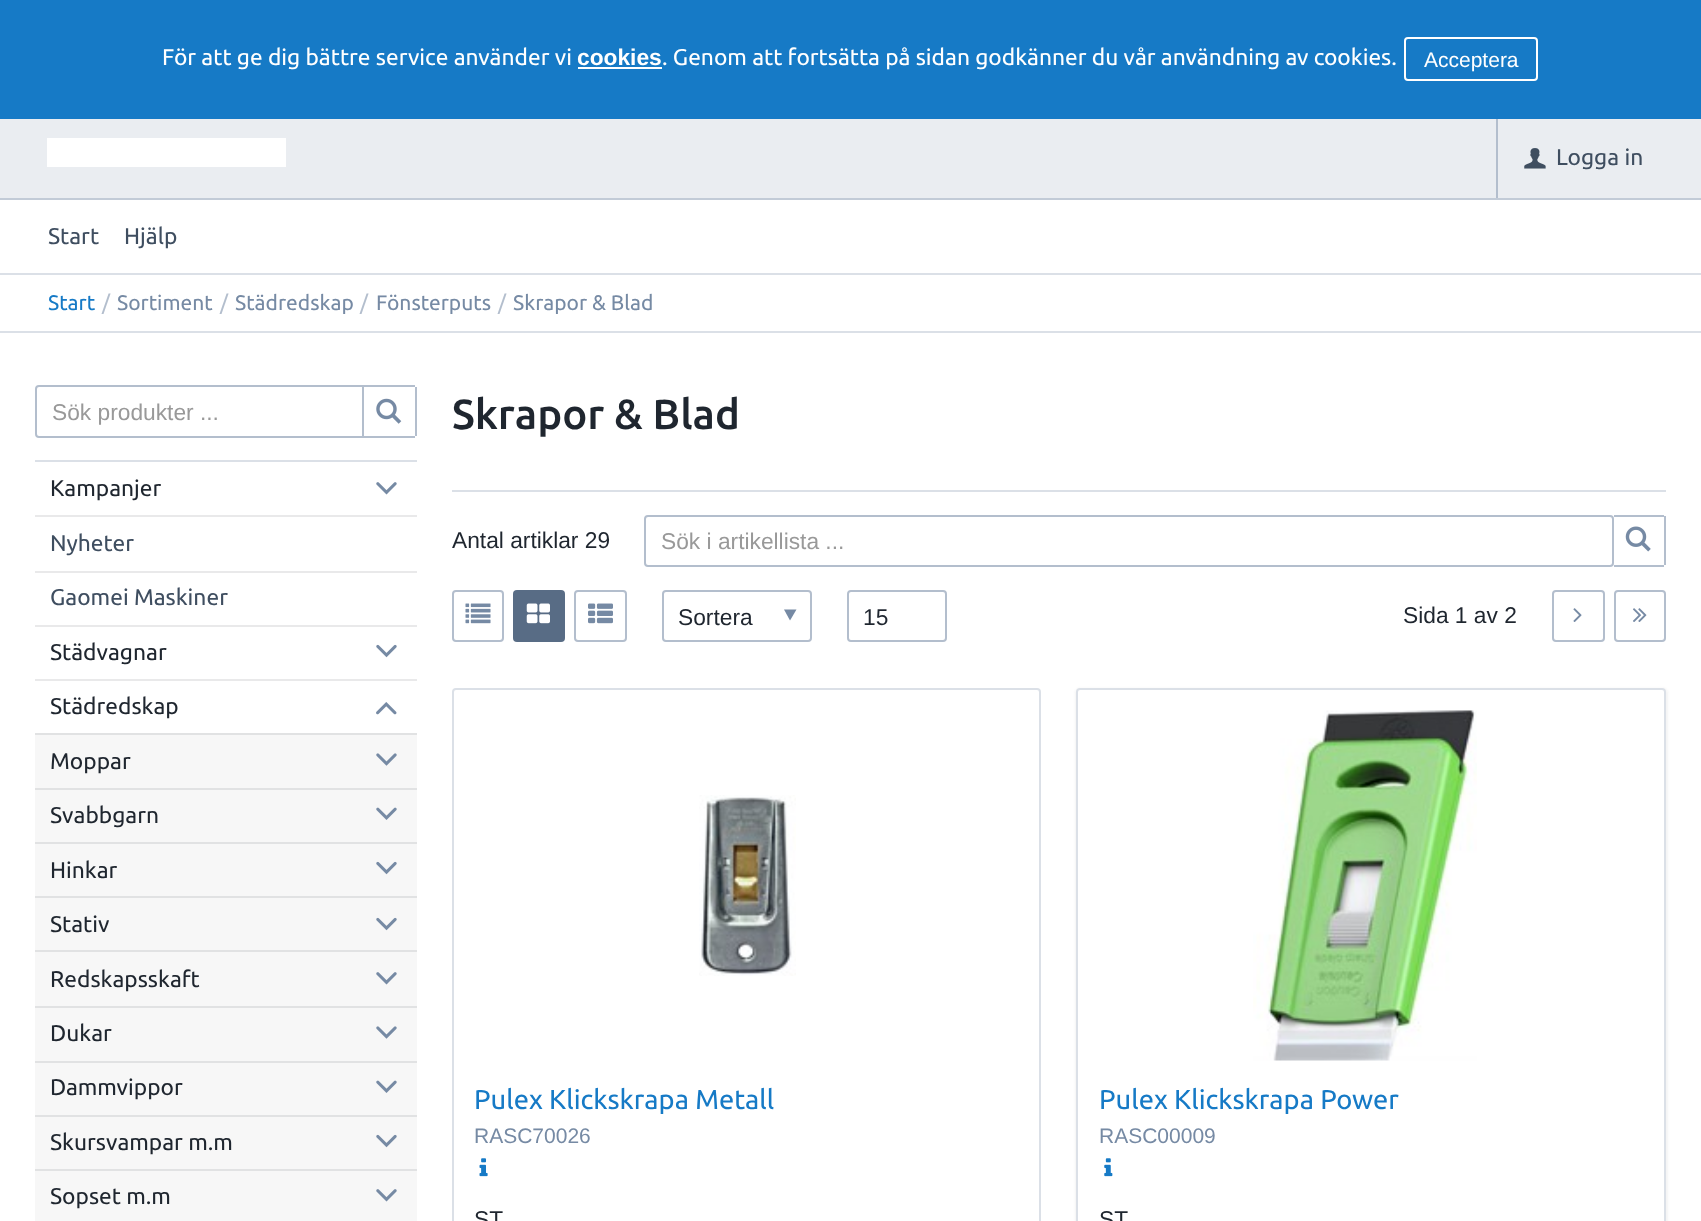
async function draw(canvas) {
  canvas.width = 1701
  canvas.height = 1221
  const ctx = canvas.getContext('2d')
  ctx.miterLimit = 4
  ctx.fontKerning = 'normal'
  async function loadImage(src) {
    const img = new Image()
    img.src = src
    await img.decode()
    return img
  }

  ctx.fillStyle = '#fff'
  ctx.fillRect(0, 0, 1701, 1221)
  ctx.fillStyle = '#167ac6'
  ctx.fillRect(0, 0, 1701, 119)
  ctx.font = '22.75px Ubuntu'
  ctx.fillStyle = '#fff'
  ctx.fillText('För att ge dig bättre service använder vi', 162, 65)
  ctx.font = 'bold 22.75px Liberation Sans'
  ctx.fillText('cookies', 577, 65)
  ctx.font = '22.75px Ubuntu'
  ctx.fillText('. Genom att fortsätta på sidan godkänner du vår användning av cookies.', 662, 65)
  ctx.fillRect(578, 67, 84, 2)
  ctx.beginPath()
  ctx.roundRect(1405, 38, 132, 42, 3)
  ctx.strokeStyle = '#fff'
  ctx.lineWidth = 2
  ctx.stroke()
  ctx.font = '21px Liberation Sans'
  ctx.fillText('Acceptera', 1424, 67)
  ctx.fillStyle = '#eaedf1'
  ctx.fillRect(0, 119, 1701, 79)
  ctx.fillStyle = '#c2cbd7'
  ctx.fillRect(0, 198, 1701, 2)
  ctx.fillStyle = '#fff'
  ctx.fillRect(47, 138, 239, 29)
  ctx.fillStyle = '#b3becd'
  ctx.fillRect(1496, 119, 2, 79)
  ctx.drawImage(await loadImage('image0.png'), 1524, 148, 22, 21)
  ctx.font = '22.75px Ubuntu'
  ctx.fillStyle = '#3f4e60'
  ctx.fillText('Logga in', 1556, 165)
  ctx.fillStyle = '#dbe0e7'
  ctx.fillRect(0, 273, 1701, 2)
  ctx.fillStyle = '#3f4e60'
  ctx.fillText('Start', 48, 244)
  ctx.fillText('Hjälp', 124, 244)
  ctx.fillStyle = '#dbe0e7'
  ctx.fillRect(0, 331, 1701, 2)
  ctx.font = '21px Ubuntu'
  ctx.fillStyle = '#167ac6'
  ctx.fillText('Start', 48, 310)
  ctx.fillStyle = '#b3becd'
  ctx.fillText('/', 102, 310)
  ctx.fillStyle = '#768aa4'
  ctx.fillText('Sortiment', 117, 310)
  ctx.fillStyle = '#b3becd'
  ctx.fillText('/', 220, 310)
  ctx.fillStyle = '#768aa4'
  ctx.fillText('Städredskap', 235, 310)
  ctx.fillStyle = '#b3becd'
  ctx.fillText('/', 360, 310)
  ctx.fillStyle = '#768aa4'
  ctx.fillText('Fönsterputs', 376, 310)
  ctx.fillStyle = '#b3becd'
  ctx.fillText('/', 498, 310)
  ctx.fillStyle = '#768aa4'
  ctx.fillText('Skrapor & Blad', 513, 310)
  ctx.beginPath()
  ctx.roundRect(36, 386, 327, 51, [3, 0, 0, 3])
  ctx.strokeStyle = '#b3becd'
  ctx.stroke()
  ctx.font = '22.75px Liberation Sans'
  ctx.fillStyle = '#999'
  ctx.fillText('Sök produkter ...', 52, 420)
  ctx.fillStyle = '#b3becd'
  ctx.fillRect(364, 385, 51, 2)
  ctx.fillRect(415, 387, 2, 49)
  ctx.fillRect(364, 436, 51, 2)
  ctx.drawImage(await loadImage('image1.png'), 376, 398, 26, 26)
  ctx.fillStyle = '#dbe0e7'
  ctx.fillRect(35, 460, 382, 2)
  ctx.fillStyle = '#e9e9ea'
  ctx.fillRect(35, 515, 382, 2)
  ctx.font = '22.75px Ubuntu'
  ctx.fillStyle = '#1f262f'
  ctx.fillText('Kampanjer', 50, 496)
  ctx.drawImage(await loadImage('image2.png'), 376, 482, 21, 13)
  ctx.fillStyle = '#e9e9ea'
  ctx.fillRect(35, 571, 382, 2)
  ctx.fillStyle = '#3f4e60'
  ctx.fillText('Nyheter', 50, 551)
  ctx.fillStyle = '#e9e9ea'
  ctx.fillRect(35, 625, 382, 2)
  ctx.fillStyle = '#3f4e60'
  ctx.fillText('Gaomei Maskiner', 50, 605)
  ctx.fillStyle = '#e9e9ea'
  ctx.fillRect(35, 679, 382, 2)
  ctx.fillStyle = '#1f262f'
  ctx.fillText('Städvagnar', 50, 660)
  ctx.drawImage(await loadImage('image3.png'), 376, 644, 21, 14)
  ctx.fillText('Städredskap', 50, 714)
  ctx.drawImage(await loadImage('image4.png'), 376, 702, 21, 13)
  ctx.fillStyle = '#f7f7f7'
  ctx.fillRect(35, 735, 382, 486)
  ctx.fillStyle = '#e1e2e3'
  ctx.fillRect(35, 733, 382, 2)
  ctx.fillRect(35, 788, 382, 2)
  ctx.fillStyle = '#1f262f'
  ctx.fillText('Moppar', 50, 769)
  ctx.drawImage(await loadImage('image5.png'), 376, 753, 21, 13)
  ctx.fillStyle = '#e1e2e3'
  ctx.fillRect(35, 842, 382, 2)
  ctx.fillStyle = '#1f262f'
  ctx.fillText('Svabbgarn', 50, 823)
  ctx.drawImage(await loadImage('image6.png'), 376, 807, 21, 13)
  ctx.fillStyle = '#e1e2e3'
  ctx.fillRect(35, 896, 382, 2)
  ctx.fillStyle = '#1f262f'
  ctx.fillText('Hinkar', 50, 878)
  ctx.drawImage(await loadImage('image7.png'), 376, 861, 21, 14)
  ctx.fillStyle = '#e1e2e3'
  ctx.fillRect(35, 950, 382, 2)
  ctx.fillStyle = '#1f262f'
  ctx.fillText('Stativ', 50, 932)
  ctx.drawImage(await loadImage('image7.png'), 376, 917, 21, 14)
  ctx.fillStyle = '#e1e2e3'
  ctx.fillRect(35, 1006, 382, 2)
  ctx.fillStyle = '#1f262f'
  ctx.fillText('Redskapsskaft', 50, 987)
  ctx.drawImage(await loadImage('image8.png'), 376, 972, 21, 13)
  ctx.fillStyle = '#e1e2e3'
  ctx.fillRect(35, 1061, 382, 2)
  ctx.fillStyle = '#1f262f'
  ctx.fillText('Dukar', 50, 1041)
  ctx.drawImage(await loadImage('image5.png'), 376, 1026, 21, 13)
  ctx.fillStyle = '#e1e2e3'
  ctx.fillRect(35, 1115, 382, 2)
  ctx.fillStyle = '#1f262f'
  ctx.fillText('Dammvippor', 50, 1095)
  ctx.drawImage(await loadImage('image6.png'), 376, 1080, 21, 13)
  ctx.fillStyle = '#e1e2e3'
  ctx.fillRect(35, 1169, 382, 2)
  ctx.fillStyle = '#1f262f'
  ctx.fillText('Skursvampar m.m', 50, 1150)
  ctx.drawImage(await loadImage('image7.png'), 376, 1134, 21, 14)
  ctx.fillText('Sopset m.m', 50, 1204)
  ctx.drawImage(await loadImage('image8.png'), 376, 1189, 21, 13)
  ctx.font = '500 42px Ubuntu'
  ctx.fillText('Skrapor & Blad', 452, 429)
  ctx.fillStyle = '#dbe0e7'
  ctx.fillRect(452, 490, 1214, 2)
  ctx.font = '22.75px Liberation Sans'
  ctx.fillStyle = '#1f262f'
  ctx.fillText('Antal artiklar 29', 452, 548)
  ctx.beginPath()
  ctx.roundRect(645, 516, 968, 50, 3)
  ctx.stroke()
  ctx.fillStyle = '#999'
  ctx.fillText('Sök i artikellista ...', 661, 549)
  ctx.fillStyle = '#b3becd'
  ctx.fillRect(1614, 515, 50, 2)
  ctx.fillRect(1664, 516, 2, 49)
  ctx.fillRect(1614, 565, 50, 2)
  ctx.drawImage(await loadImage('image9.png'), 1625, 526, 26, 26)
  ctx.beginPath()
  ctx.roundRect(453, 591, 50, 50, 3)
  ctx.stroke()
  ctx.drawImage(await loadImage('image10.png'), 465, 603, 26, 21)
  ctx.fillStyle = '#586c85'
  ctx.beginPath()
  ctx.roundRect(513, 590, 52, 52, 4)
  ctx.fill()
  ctx.drawImage(await loadImage('image11.png'), 526, 603, 24, 21)
  ctx.beginPath()
  ctx.roundRect(575, 591, 51, 50, 3)
  ctx.stroke()
  ctx.drawImage(await loadImage('image12.png'), 588, 603, 25, 21)
  ctx.beginPath()
  ctx.roundRect(663, 591, 148, 50, 3)
  ctx.stroke()
  ctx.fillStyle = '#1f262f'
  ctx.fillText('Sortera', 678, 625)
  ctx.fillStyle = '#768aa4'
  ctx.beginPath()
  ctx.moveTo(796.5, 609.5)
  ctx.lineTo(790, 620.5)
  ctx.lineTo(784, 609.5)
  ctx.closePath()
  ctx.fill()
  ctx.beginPath()
  ctx.roundRect(848, 591, 98, 50, 3)
  ctx.stroke()
  ctx.fillStyle = '#1f262f'
  ctx.fillText('15', 863, 625)
  ctx.fillText('Sida 1 av 2', 1403, 623)
  ctx.beginPath()
  ctx.roundRect(1553, 591, 51, 50, 3)
  ctx.stroke()
  ctx.drawImage(await loadImage('image13.png'), 1573, 608, 9, 14)
  ctx.beginPath()
  ctx.roundRect(1615, 591, 50, 50, 3)
  ctx.stroke()
  ctx.drawImage(await loadImage('image14.png'), 1633, 608, 14, 14)
  ctx.drawImage(await loadImage('image15.png'), 699, 795, 97, 181)
  ctx.drawImage(await loadImage('image16.png'), 479, 1158, 9, 19)
  ctx.beginPath()
  ctx.roundRect(453, 689, 587, 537, 3)
  ctx.strokeStyle = '#dbe0e7'
  ctx.stroke()
  ctx.font = '27.25px Ubuntu'
  ctx.fillStyle = '#167ac6'
  ctx.fillText('Pulex Klickskrapa Metall', 474, 1109)
  ctx.font = '21px Liberation Sans'
  ctx.fillStyle = '#768aa4'
  ctx.fillText('RASC70026', 474, 1143)
  ctx.font = '22.75px Liberation Sans'
  ctx.fillStyle = '#1f262f'
  ctx.fillText('ST', 474, 1227)
  ctx.drawImage(await loadImage('image17.png'), 1253, 710, 224, 351)
  ctx.drawImage(await loadImage('image18.png'), 1104, 1158, 9, 19)
  ctx.save()
  ctx.beginPath()
  ctx.moveTo(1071, 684)
  ctx.lineTo(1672, 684)
  ctx.lineTo(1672, 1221)
  ctx.lineTo(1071, 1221)
  ctx.closePath()
  ctx.moveTo(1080, 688)
  ctx.lineTo(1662, 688)
  ctx.bezierCurveTo(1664, 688, 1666, 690, 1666, 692)
  ctx.lineTo(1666, 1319)
  ctx.bezierCurveTo(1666, 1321, 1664, 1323, 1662, 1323)
  ctx.lineTo(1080, 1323)
  ctx.bezierCurveTo(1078, 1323, 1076, 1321, 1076, 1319)
  ctx.lineTo(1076, 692)
  ctx.bezierCurveTo(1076, 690, 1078, 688, 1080, 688)
  ctx.closePath()
  ctx.clip('evenodd')
  ctx.fillStyle = '#1f262f0d'
  ctx.filter = 'blur(1px)'
  ctx.beginPath()
  ctx.roundRect(1075, 688, 593, 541, 5)
  ctx.fill()
  ctx.filter = 'none'
  ctx.restore()
  ctx.beginPath()
  ctx.roundRect(1077, 689, 588, 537, 3)
  ctx.stroke()
  ctx.font = '27.25px Ubuntu'
  ctx.fillStyle = '#167ac6'
  ctx.fillText('Pulex Klickskrapa Power', 1099, 1109)
  ctx.font = '21px Liberation Sans'
  ctx.fillStyle = '#768aa4'
  ctx.fillText('RASC00009', 1099, 1143)
  ctx.font = '22.75px Liberation Sans'
  ctx.fillStyle = '#1f262f'
  ctx.fillText('ST', 1099, 1227)
}

draw(document.querySelector('canvas'))
